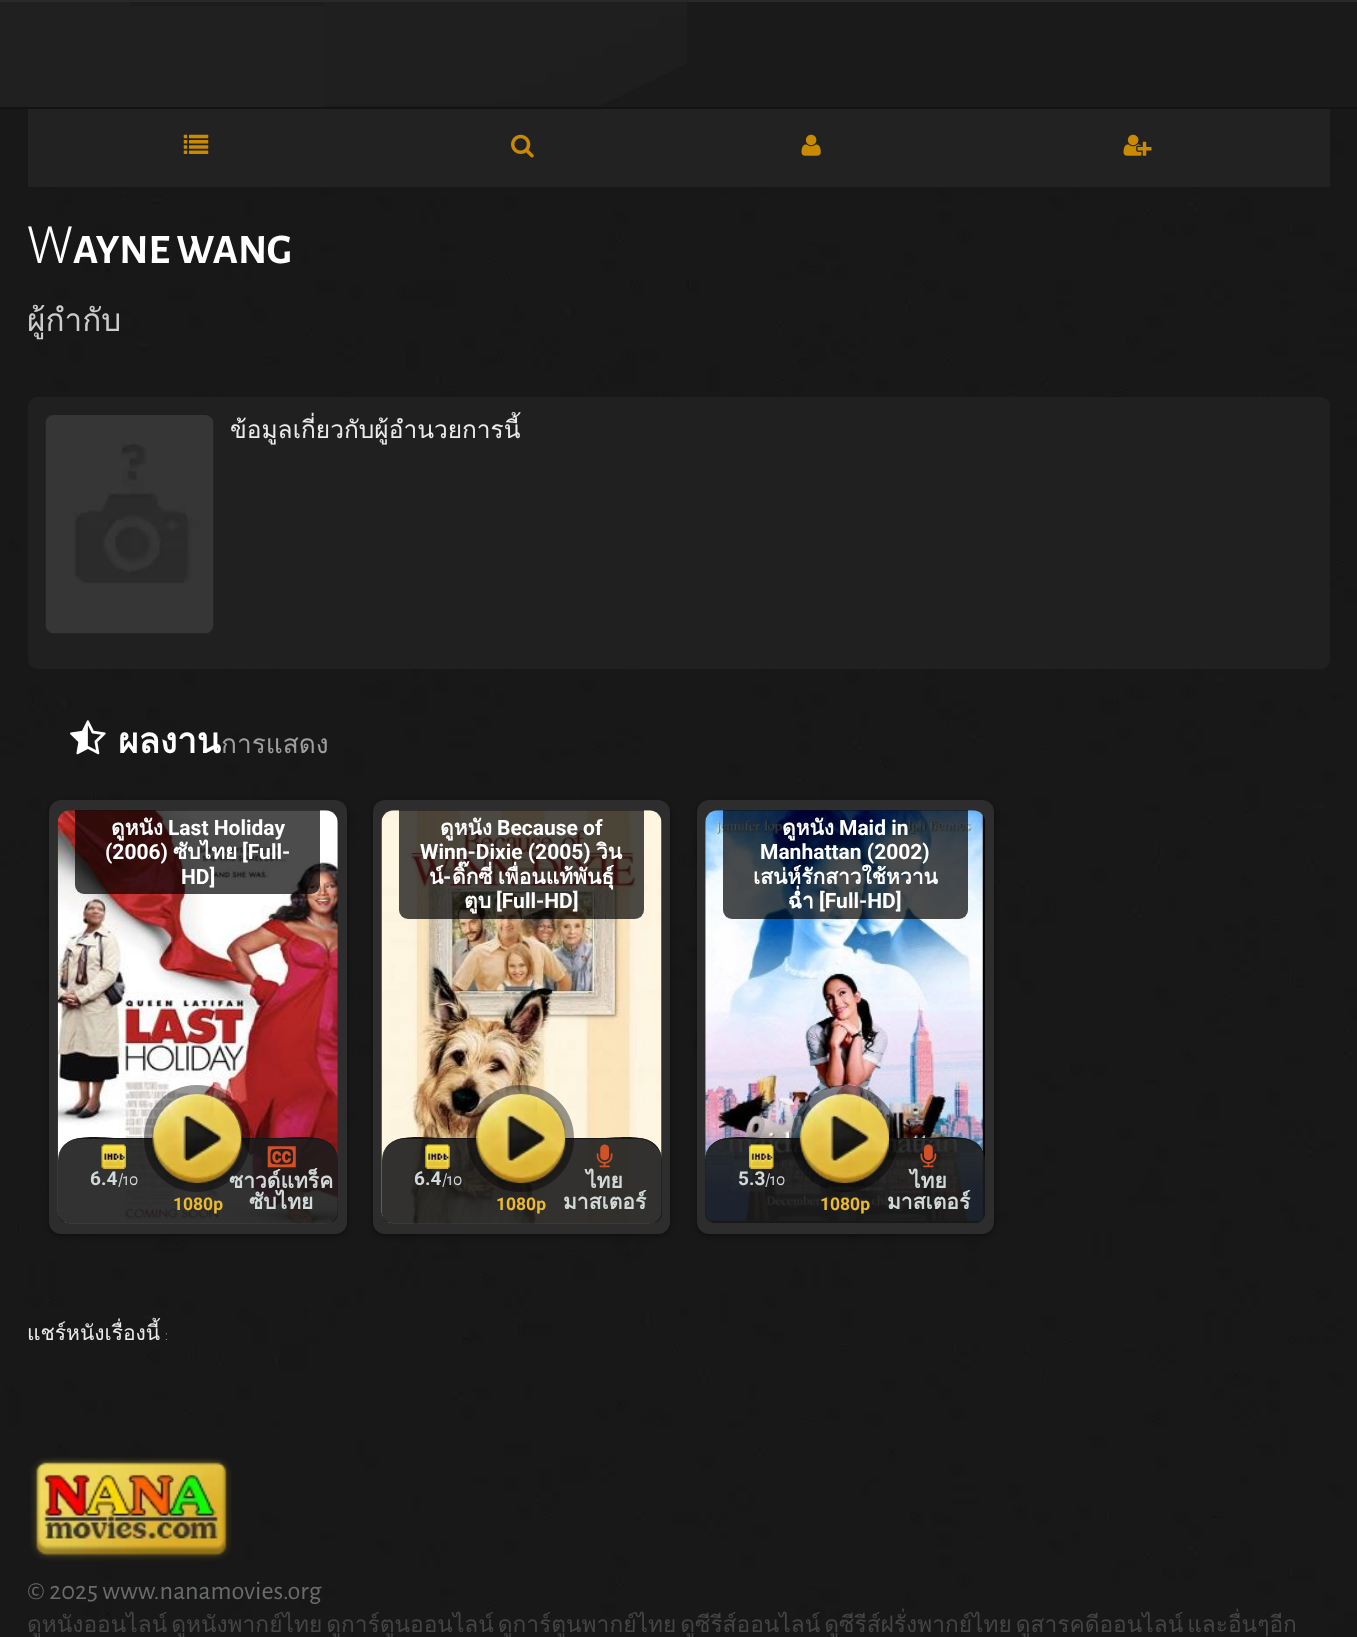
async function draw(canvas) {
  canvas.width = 1357
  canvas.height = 1637
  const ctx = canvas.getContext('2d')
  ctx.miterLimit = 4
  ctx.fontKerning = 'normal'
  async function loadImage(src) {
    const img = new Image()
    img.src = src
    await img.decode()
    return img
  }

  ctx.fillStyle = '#fff'
  ctx.fillRect(0, 0, 1357, 1637)
  ctx.drawImage(await loadImage('image0.png'), 0, 109, 1357, 1528)
  ctx.fillStyle = '#1a1a1a'
  ctx.fillRect(324, 2, 1033, 105)
  ctx.fillStyle = '#292929'
  ctx.fillRect(0, 0, 1357, 2)
  ctx.fillStyle = '#131313'
  ctx.fillRect(0, 107, 1357, 2)
  ctx.fillStyle = '#202020'
  ctx.fillRect(0, 2, 324, 105)
  ctx.drawImage(await loadImage('image1.png'), 324, 2, 363, 104)
  ctx.fillStyle = '#1c1c1c'
  ctx.fillRect(131, 2, 193, 4)
  ctx.fillStyle = '#222'
  ctx.fillRect(28, 109, 1302, 78)
  ctx.drawImage(await loadImage('image2.png'), 183, 134, 26, 20)
  ctx.drawImage(await loadImage('image3.png'), 511, 134, 23, 24)
  ctx.drawImage(await loadImage('image4.png'), 801, 134, 20, 22)
  ctx.drawImage(await loadImage('image5.png'), 1123, 134, 29, 22)
  ctx.font = '300 51px Noto Sans'
  ctx.fillStyle = '#fff'
  ctx.fillText('W', 27, 263)
  ctx.font = 'bold 42px Alegreya Sans'
  ctx.fillText('AYNE WANG', 73, 263)
  ctx.font = '31.5px Loma'
  ctx.fillStyle = '#ccc'
  ctx.fillText('ผู้กำกับ', 27, 331)
  ctx.fillStyle = '#202020'
  ctx.beginPath()
  ctx.roundRect(28, 397, 1302, 272, 9)
  ctx.fill()
  ctx.drawImage(await loadImage('image6.png'), 45, 415, 169, 219)
  ctx.font = '24.5px Loma'
  ctx.fillStyle = '#ebebeb'
  ctx.fillText('ข้อมูลเกี่ยวกับผู้อำนวยการนี้', 230, 438)
  ctx.drawImage(await loadImage('image7.png'), 70, 720, 36, 35)
  ctx.font = 'bold 35px Loma'
  ctx.fillStyle = '#fff'
  ctx.fillText('ผลงาน', 118, 753)
  ctx.font = '26.25px Loma'
  ctx.fillStyle = '#9f9f9f'
  ctx.fillText('การแสดง', 221, 753)
  ctx.fillStyle = '#00000061'
  ctx.filter = 'blur(2.5px)'
  ctx.beginPath()
  ctx.roundRect(49, 802, 298, 434, 12)
  ctx.fill()
  ctx.filter = 'none'
  ctx.fillStyle = '#2d2d2d'
  ctx.beginPath()
  ctx.roundRect(49, 800, 298, 434, 12)
  ctx.fill()
  ctx.drawImage(await loadImage('image8.png'), 57, 810, 281, 414)
  ctx.fillStyle = '#000000b3'
  ctx.beginPath()
  ctx.roundRect(75, 810, 245, 84, [0, 0, 9, 9])
  ctx.fill()
  ctx.font = 'bold 21px Loma'
  ctx.fillStyle = '#fff'
  ctx.fillText('ดูหนัง', 111, 835)
  ctx.font = 'bold 21px Roboto'
  ctx.fillText('Last Holiday', 168, 835)
  ctx.fillText('(2006)', 105, 859)
  ctx.font = 'bold 21px Loma'
  ctx.fillText('ซับไทย', 173, 859)
  ctx.font = 'bold 21px Roboto'
  ctx.fillText('[Full-', 242, 859)
  ctx.fillText('HD]', 181, 884)
  ctx.fillStyle = '#1c1c1ce6'
  ctx.beginPath()
  ctx.roundRect(58, 1138, 280, 85, [23, 23, 9, 9])
  ctx.fill()
  ctx.fillStyle = '#161616'
  ctx.beginPath()
  ctx.moveTo(80, 1139)
  ctx.lineTo(315, 1139)
  ctx.bezierCurveTo(328, 1139, 338, 1149, 338, 1162)
  ctx.bezierCurveTo(338, 1129, 296, 1138, 276, 1138)
  ctx.lineTo(120, 1138)
  ctx.bezierCurveTo(100, 1138, 58, 1129, 58, 1162)
  ctx.bezierCurveTo(58, 1149, 68, 1139, 80, 1139)
  ctx.closePath()
  ctx.fill()
  ctx.drawImage(await loadImage('image9.png'), 101, 1144, 25, 25)
  ctx.font = 'bold 19px Roboto'
  ctx.fillStyle = '#d2d9d9'
  ctx.fillText('6.4', 90, 1185)
  ctx.font = '17.5px Alegreya Sans'
  ctx.fillText('/10', 118, 1185)
  ctx.drawImage(await loadImage('image10.png'), 152, 1093, 90, 90)
  ctx.beginPath()
  ctx.roundRect(148.5, 1089.5, 97, 98, 48.5)
  ctx.strokeStyle = '#00000066'
  ctx.lineWidth = 9
  ctx.stroke()
  ctx.drawImage(await loadImage('image11.png'), 267, 1146, 29, 22)
  ctx.font = 'bold 21px Loma'
  ctx.fillText('ซาวด์แทร็ค', 229, 1188)
  ctx.fillText('ซับไทย', 249, 1209)
  ctx.font = 'bold 17.5px Roboto'
  ctx.fillStyle = '#eaba32'
  ctx.fillText('1080p', 173, 1210)
  ctx.fillStyle = '#00000061'
  ctx.filter = 'blur(2.5px)'
  ctx.beginPath()
  ctx.roundRect(373, 802, 297, 434, 12)
  ctx.fill()
  ctx.filter = 'none'
  ctx.fillStyle = '#2d2d2d'
  ctx.beginPath()
  ctx.roundRect(373, 800, 297, 434, 12)
  ctx.fill()
  ctx.drawImage(await loadImage('image12.png'), 381, 810, 281, 414)
  ctx.fillStyle = '#000000b3'
  ctx.beginPath()
  ctx.roundRect(399, 810, 245, 109, [0, 0, 9, 9])
  ctx.fill()
  ctx.font = 'bold 21px Loma'
  ctx.fillStyle = '#fff'
  ctx.fillText('ดูหนัง', 440, 835)
  ctx.font = 'bold 21px Roboto'
  ctx.fillText('Because of', 497, 835)
  ctx.fillText('Winn-Dixie (2005)', 420, 859)
  ctx.font = 'bold 21px Loma'
  ctx.fillText('วิน', 596, 859)
  ctx.fillText('น์', 429, 884)
  ctx.font = 'bold 21px Roboto'
  ctx.fillText('-', 443, 884)
  ctx.wordSpacing = '-2px'
  ctx.font = 'bold 21px Loma'
  ctx.fillText('ดิ๊กซี่ เพื่อนแท้พันธุ์', 452, 884)
  ctx.wordSpacing = '0px'
  ctx.fillText('ตูบ', 464, 908)
  ctx.font = 'bold 21px Roboto'
  ctx.fillText('[Full-HD]', 496, 908)
  ctx.fillStyle = '#1c1c1ce6'
  ctx.beginPath()
  ctx.roundRect(382, 1138, 280, 85, [23, 23, 9, 9])
  ctx.fill()
  ctx.fillStyle = '#161616'
  ctx.beginPath()
  ctx.moveTo(404, 1139)
  ctx.lineTo(639, 1139)
  ctx.bezierCurveTo(651, 1139, 662, 1149, 662, 1162)
  ctx.bezierCurveTo(662, 1129, 620, 1138, 600, 1138)
  ctx.lineTo(444, 1138)
  ctx.bezierCurveTo(424, 1138, 382, 1129, 382, 1162)
  ctx.bezierCurveTo(382, 1149, 392, 1139, 404, 1139)
  ctx.closePath()
  ctx.fill()
  ctx.drawImage(await loadImage('image13.png'), 425, 1144, 25, 25)
  ctx.font = 'bold 19px Roboto'
  ctx.fillStyle = '#d2d9d9'
  ctx.fillText('6.4', 414, 1185)
  ctx.font = '17.5px Alegreya Sans'
  ctx.fillText('/10', 442, 1185)
  ctx.drawImage(await loadImage('image14.png'), 476, 1093, 90, 90)
  ctx.beginPath()
  ctx.arc(520.5, 1138.5, 49, 0, 2 * Math.PI)
  ctx.stroke()
  ctx.drawImage(await loadImage('image15.png'), 596, 1144, 17, 24)
  ctx.font = 'bold 21px Loma'
  ctx.fillText('ไทย', 586, 1188)
  ctx.fillText('มาสเตอร์', 563, 1209)
  ctx.font = 'bold 17.5px Roboto'
  ctx.fillStyle = '#eaba32'
  ctx.fillText('1080p', 496, 1210)
  ctx.fillStyle = '#00000061'
  ctx.filter = 'blur(2.5px)'
  ctx.beginPath()
  ctx.roundRect(697, 802, 297, 434, 12)
  ctx.fill()
  ctx.filter = 'none'
  ctx.fillStyle = '#2d2d2d'
  ctx.beginPath()
  ctx.roundRect(697, 800, 297, 434, 12)
  ctx.fill()
  ctx.drawImage(await loadImage('image16.png'), 705, 810, 280, 413)
  ctx.fillStyle = '#000000b3'
  ctx.beginPath()
  ctx.roundRect(723, 810, 245, 109, [0, 0, 9, 9])
  ctx.fill()
  ctx.font = 'bold 21px Loma'
  ctx.fillStyle = '#fff'
  ctx.fillText('ดูหนัง', 782, 835)
  ctx.font = 'bold 21px Roboto'
  ctx.fillText('Maid in', 839, 835)
  ctx.fillText('Manhattan (2002)', 760, 859)
  ctx.font = 'bold 21px Loma'
  ctx.fillText('เสน่ห์รักสาวใช้หวาน', 753, 884)
  ctx.fillText('ฉ่ำ', 788, 908)
  ctx.font = 'bold 21px Roboto'
  ctx.fillText('[Full-HD]', 819, 908)
  ctx.fillStyle = '#1c1c1ce6'
  ctx.beginPath()
  ctx.roundRect(705, 1138, 280, 85, [23, 23, 9, 9])
  ctx.fill()
  ctx.fillStyle = '#161616'
  ctx.beginPath()
  ctx.moveTo(728, 1139)
  ctx.lineTo(962, 1139)
  ctx.bezierCurveTo(975, 1139, 985, 1149, 985, 1162)
  ctx.bezierCurveTo(985, 1129, 943, 1138, 923, 1138)
  ctx.lineTo(767, 1138)
  ctx.bezierCurveTo(747, 1138, 705, 1129, 705, 1162)
  ctx.bezierCurveTo(705, 1149, 715, 1139, 728, 1139)
  ctx.closePath()
  ctx.fill()
  ctx.drawImage(await loadImage('image17.png'), 749, 1144, 25, 25)
  ctx.font = 'bold 19px Roboto'
  ctx.fillStyle = '#d2d9d9'
  ctx.fillText('5.3', 738, 1185)
  ctx.font = '17.5px Alegreya Sans'
  ctx.fillText('/10', 765, 1185)
  ctx.drawImage(await loadImage('image18.png'), 799, 1093, 90, 90)
  ctx.beginPath()
  ctx.arc(844.5, 1138.5, 49, 0, 2 * Math.PI)
  ctx.stroke()
  ctx.drawImage(await loadImage('image19.png'), 920, 1144, 17, 24)
  ctx.font = 'bold 21px Loma'
  ctx.fillText('ไทย', 910, 1188)
  ctx.fillText('มาสเตอร์', 887, 1209)
  ctx.font = 'bold 17.5px Roboto'
  ctx.fillStyle = '#eaba32'
  ctx.fillText('1080p', 820, 1210)
  ctx.font = '21px Loma'
  ctx.fillStyle = '#ebebeb'
  ctx.fillText('แชร์หนังเรื่องนี้', 27, 1340)
  ctx.font = '100 21px Alegreya Sans'
  ctx.fillText(':', 164, 1340)
  ctx.drawImage(await loadImage('image20.png'), 30, 1457, 202, 104)
  ctx.font = '26.25px Alegreya Sans'
  ctx.fillStyle = '#696b6c'
  ctx.fillText('© 2025 www.nanamovies.org', 27, 1599)
  ctx.wordSpacing = '-3.75px'
  ctx.font = '22.75px Loma'
  ctx.fillStyle = '#444'
  ctx.fillText('ดูหนังออนไลน์ ดูหนังพากย์ไทย ดูการ์ตูนออนไลน์ ดูการ์ตูนพากย์ไทย ดูซีรีส์ออนไลน์ ดูซีรีส์ฝรั่งพากย์ไทย ดูสารคดีออนไลน์ และอื่นๆอีก', 27, 1632)
}

draw(document.querySelector('canvas'))
